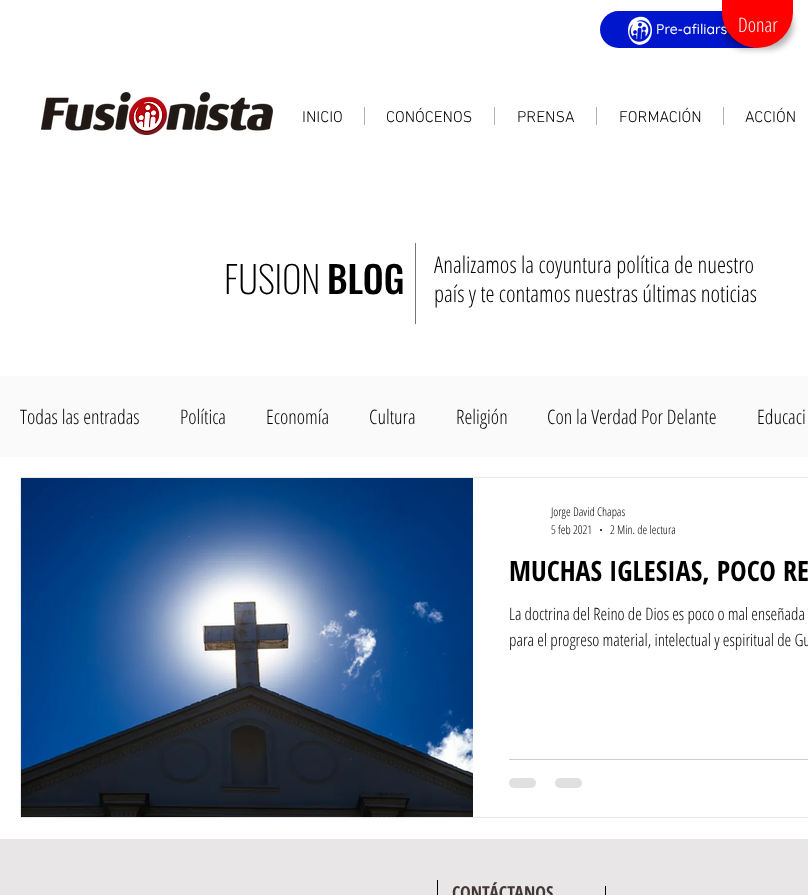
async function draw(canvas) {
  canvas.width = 808
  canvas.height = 895
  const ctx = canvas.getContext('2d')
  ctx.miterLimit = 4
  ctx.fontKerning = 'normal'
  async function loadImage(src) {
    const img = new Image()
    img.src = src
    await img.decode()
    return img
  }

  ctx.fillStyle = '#fff'
  ctx.fillRect(0, 0, 808, 895)
  ctx.fillStyle = '#0016cc'
  ctx.beginPath()
  ctx.roundRect(600, 11, 171, 37, 18.5)
  ctx.fill()
  ctx.fillStyle = '#0000004d'
  ctx.filter = 'blur(3px)'
  ctx.beginPath()
  ctx.roundRect(722, 1, 71, 48, 36)
  ctx.fill()
  ctx.filter = 'none'
  ctx.font = '500 14px Quicksand'
  ctx.fillStyle = '#fff'
  ctx.fillText('Pre-afiliars', 656, 34)
  ctx.fillStyle = '#f00'
  ctx.beginPath()
  ctx.roundRect(722, 0, 71, 48, [0, 0, 35.5, 35.5])
  ctx.fill()
  ctx.font = '300 20px Open Sans Condensed'
  ctx.fillStyle = '#fff'
  ctx.fillText('Donar', 738, 32)
  ctx.drawImage(await loadImage('image0.png'), 628, 16, 24, 29)
  ctx.drawImage(await loadImage('image1.png'), 41, 92, 232, 43)
  ctx.font = '300 16px "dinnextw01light"'
  ctx.fillStyle = '#000'
  ctx.fillText('INICIO', 302, 122)
  ctx.fillStyle = '#b3b3b3'
  ctx.fillRect(364, 107, 1, 18)
  ctx.fillStyle = '#000'
  ctx.fillText('CONÓCENOS', 386, 122)
  ctx.fillStyle = '#b3b3b3'
  ctx.fillRect(494, 107, 1, 18)
  ctx.fillStyle = '#000'
  ctx.fillText('PRENSA', 517, 122)
  ctx.fillStyle = '#b3b3b3'
  ctx.fillRect(596, 107, 1, 18)
  ctx.fillStyle = '#000'
  ctx.fillText('FORMACIÓN', 619, 122)
  ctx.fillStyle = '#b3b3b3'
  ctx.fillRect(723, 107, 1, 18)
  ctx.fillStyle = '#000'
  ctx.fillText('ACCIÓN', 745, 122)
  ctx.font = '200 37px Oswald'
  ctx.fillText('FUSION', 224, 294)
  ctx.font = '500 37px Oswald'
  ctx.fillText('BLOG', 327, 294)
  ctx.fillStyle = '#757575'
  ctx.fillRect(415, 243, 1, 81)
  ctx.font = '300 23px Open Sans Condensed'
  ctx.fillStyle = '#000'
  ctx.fillText('Analizamos la coyuntura política de nuestro', 434, 273)
  ctx.fillText('país y te contamos nuestras últimas noticias', 434, 302)
  ctx.fillStyle = '#fafafa'
  ctx.fillRect(0, 376, 808, 81)
  ctx.font = '300 20px Open Sans Condensed'
  ctx.fillStyle = '#000'
  ctx.fillText('Todas las entradas', 20, 424)
  ctx.fillText('Política', 180, 424)
  ctx.fillText('Economía', 266, 424)
  ctx.fillText('Cultura', 369, 424)
  ctx.fillText('Religión', 456, 424)
  ctx.fillText('Con la Verdad Por Delante', 547, 424)
  ctx.fillText('Educaci', 757, 424)
  ctx.strokeStyle = '#e8e6e6'
  ctx.strokeRect(20.5, 477.5, 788, 340)
  ctx.drawImage(await loadImage('image2.png'), 21, 478, 452, 339)
  ctx.font = '300 12px Open Sans Condensed'
  ctx.fillText('Jorge David Chapas', 551, 516)
  ctx.fillText('5 feb 2021', 551, 534)
  ctx.beginPath()
  ctx.arc(601, 530, 1, 0, 2 * Math.PI)
  ctx.fill()
  ctx.fillText('2 Min. de lectura', 610, 534)
  ctx.font = 'bold 28px Open Sans Condensed'
  ctx.fillText('MUCHAS IGLESIAS, POCO RE', 509, 581)
  ctx.font = '300 17px Open Sans Condensed'
  ctx.fillText('La doctrina del Reino de Dios es poco o mal enseñada', 509, 620)
  ctx.fillText('para el progreso material, intelectual y espiritual de Gu', 509, 646)
  ctx.fillStyle = '#ccc'
  ctx.fillRect(509, 759, 299, 1)
  ctx.fillStyle = '#e0e0e0'
  ctx.beginPath()
  ctx.roundRect(509, 778, 27, 10, 5)
  ctx.fill()
  ctx.beginPath()
  ctx.roundRect(555, 778, 27, 10, 5)
  ctx.fill()
  ctx.fillStyle = '#e8e6e6'
  ctx.fillRect(0, 839, 808, 56)
  ctx.fillStyle = '#000'
  ctx.fillRect(437, 880, 1, 15)
  ctx.font = 'bold 18px Open Sans Condensed'
  ctx.fillStyle = '#423737'
  ctx.fillText('CONTÁCTANOS', 452, 899)
  ctx.fillStyle = '#000'
  ctx.fillRect(605, 886, 1, 9)
}

draw(document.querySelector('canvas'))
